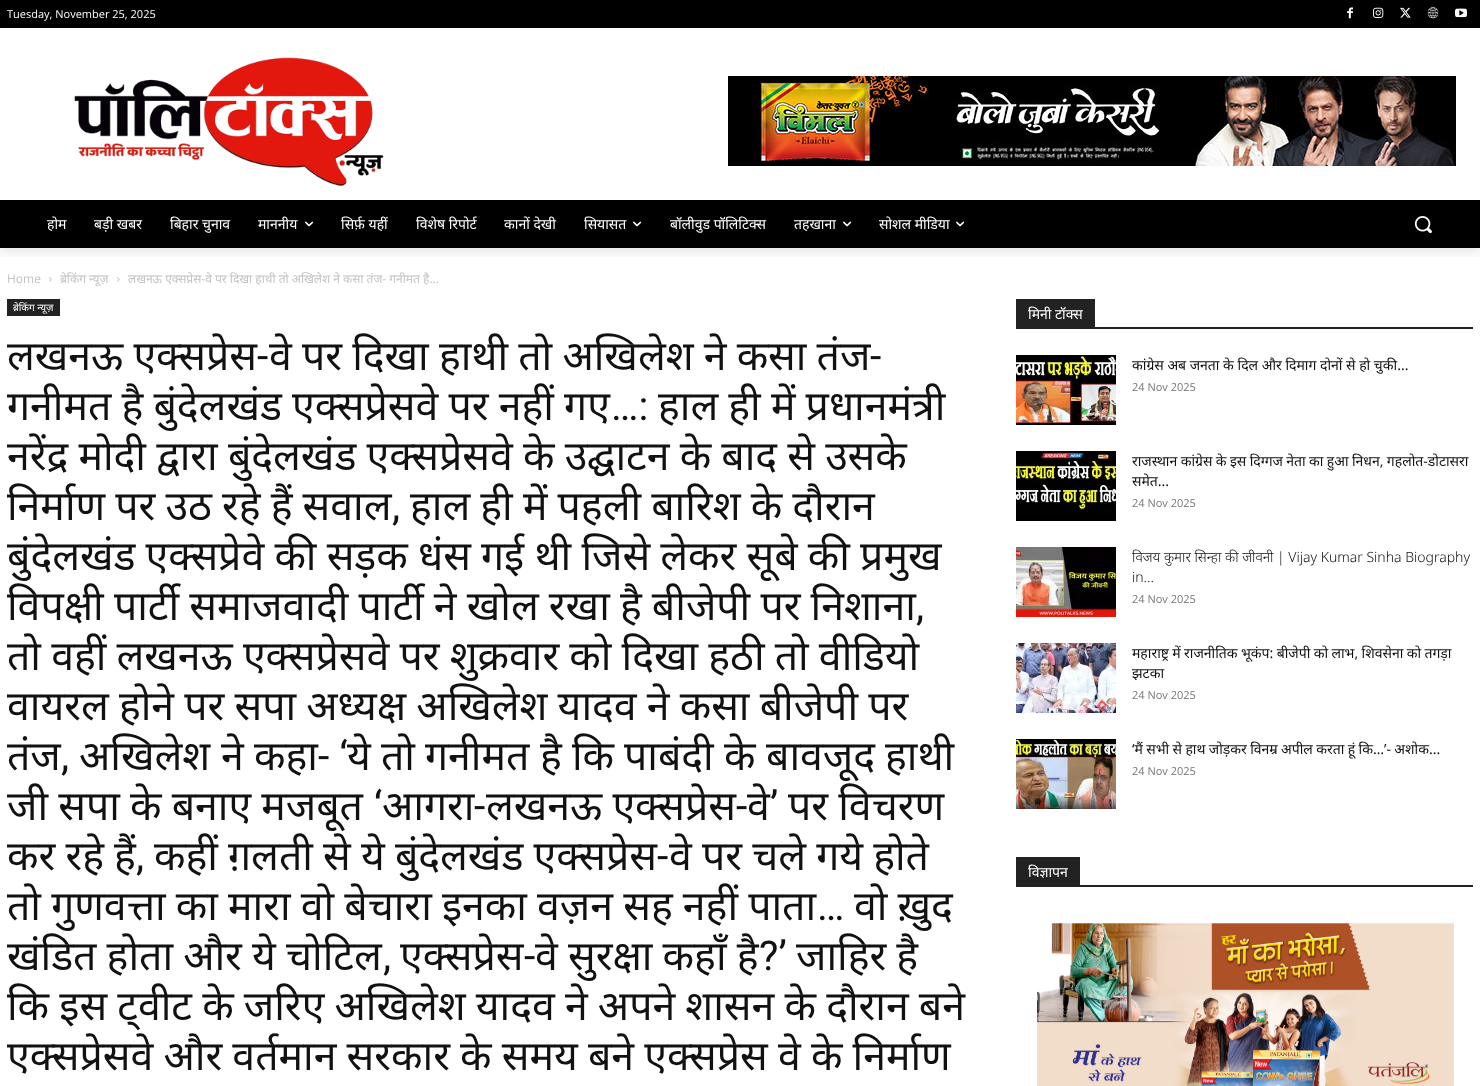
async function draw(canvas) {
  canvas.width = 1480
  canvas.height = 1086
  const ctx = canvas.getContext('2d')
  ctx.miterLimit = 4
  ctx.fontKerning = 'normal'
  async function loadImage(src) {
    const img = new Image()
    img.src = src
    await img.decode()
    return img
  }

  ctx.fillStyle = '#fff'
  ctx.fillRect(0, 0, 1480, 1086)
  ctx.fillStyle = '#000'
  ctx.fillRect(0, 0, 1480, 28)
  ctx.drawImage(await loadImage('image0.png'), 1347, 7, 6, 12)
  ctx.drawImage(await loadImage('image1.png'), 1373, 7, 11, 11)
  ctx.drawImage(await loadImage('image2.png'), 1400, 7, 11, 11)
  ctx.drawImage(await loadImage('image3.png'), 1427, 7, 12, 12)
  ctx.drawImage(await loadImage('image4.png'), 1455, 8, 12, 10)
  ctx.drawImage(await loadImage('image5.png'), 74, 57, 310, 129)
  ctx.drawImage(await loadImage('image6.png'), 728, 76, 728, 90)
  ctx.fillRect(0, 200, 1480, 48)
  ctx.save()
  ctx.beginPath()
  ctx.rect(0, 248, 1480, 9)
  ctx.clip()
  ctx.fillStyle = '#00000014'
  ctx.filter = 'blur(4px)'
  ctx.beginPath()
  ctx.rect(0, 6, 1480, 248)
  ctx.fill()
  ctx.filter = 'none'
  ctx.restore()
  ctx.font = '11px Open Sans'
  ctx.fillStyle = '#fff'
  ctx.fillText('Tuesday, November 25, 2025', 7, 18)
  ctx.font = '14px Noto Sans'
  ctx.fillText('होम', 47, 229)
  ctx.fillText('बड़ी खबर', 94, 229)
  ctx.fillText('बिहार चुनाव', 170, 229)
  ctx.fillText('माननीय', 258, 229)
  ctx.drawImage(await loadImage('image7.png'), 305, 221, 9, 6)
  ctx.fillText('सिर्फ़ यहीं', 341, 229)
  ctx.fillText('विशेष रिपोर्ट', 416, 229)
  ctx.fillText('कानों देखी', 504, 229)
  ctx.fillText('सियासत', 584, 229)
  ctx.drawImage(await loadImage('image7.png'), 633, 221, 9, 6)
  ctx.fillText('बॉलीवुड पॉलिटिक्स', 670, 229)
  ctx.fillText('तहखाना', 794, 229)
  ctx.drawImage(await loadImage('image7.png'), 843, 221, 9, 6)
  ctx.fillText('सोशल मीडिया', 879, 229)
  ctx.drawImage(await loadImage('image7.png'), 956, 221, 9, 6)
  ctx.drawImage(await loadImage('image8.png'), 1414, 216, 18, 18)
  ctx.font = '12px Open Sans'
  ctx.fillStyle = '#c3c3c3'
  ctx.fillText('Home', 7, 283)
  ctx.drawImage(await loadImage('image9.png'), 49, 277, 3, 5)
  ctx.font = '12px Noto Sans'
  ctx.fillText('ब्रेकिंग न्यूज़', 60, 283)
  ctx.drawImage(await loadImage('image9.png'), 117, 277, 3, 5)
  ctx.fillText('लखनऊ एक्‍सप्रेस-वे पर दिखा हाथी तो अखिलेश ने कसा तंज- गनीमत है...', 128, 283)
  ctx.fillStyle = '#222'
  ctx.fillRect(7, 299, 53, 17)
  ctx.font = '10px Noto Sans'
  ctx.fillStyle = '#fff'
  ctx.fillText('ब्रेकिंग न्यूज़', 13, 311)
  ctx.wordSpacing = '-0.5px'
  ctx.font = '41px Noto Sans'
  ctx.fillStyle = '#111'
  ctx.fillText('लखनऊ एक्‍सप्रेस', 7, 370)
  ctx.wordSpacing = '0px'
  ctx.font = '41px Roboto'
  ctx.fillText('-', 257, 370)
  ctx.wordSpacing = '-0.5px'
  ctx.font = '41px Noto Sans'
  ctx.fillText('वे पर दिखा हाथी तो अखिलेश ने कसा तंज', 269, 370)
  ctx.wordSpacing = '0px'
  ctx.font = '41px Roboto'
  ctx.fillText('-', 870, 370)
  ctx.wordSpacing = '-0.5px'
  ctx.font = '41px Noto Sans'
  ctx.fillText('गनीमत है बुंदेलखंड एक्सप्रेसवे पर नहीं गए', 7, 420)
  ctx.wordSpacing = '0px'
  ctx.font = '41px Roboto'
  ctx.fillText('…:', 611, 420)
  ctx.wordSpacing = '-0.5px'
  ctx.font = '41px Noto Sans'
  ctx.fillText('हाल ही में प्रधानमंत्री', 658, 420)
  ctx.fillText('नरेंद्र मोदी द्वारा बुंदेलखंड एक्सप्रेसवे के उद्घाटन के बाद से उसके', 7, 470)
  ctx.fillText('निर्माण पर उठ रहे हैं सवाल', 7, 520)
  ctx.wordSpacing = '0px'
  ctx.font = '41px Roboto'
  ctx.fillText(',', 392, 520)
  ctx.wordSpacing = '-0.5px'
  ctx.font = '41px Noto Sans'
  ctx.fillText('हाल ही में पहली बारिश के दौरान', 410, 520)
  ctx.fillText('बुंदेलखंड एक्सप्रेवे की सड़क धंस गई थी जिसे लेकर सूबे की प्रमुख', 7, 570)
  ctx.fillText('विपक्षी पार्टी समाजवादी पार्टी ने खोल रखा है बीजेपी पर निशाना', 7, 620)
  ctx.wordSpacing = '0px'
  ctx.font = '41px Roboto'
  ctx.fillText(',', 916, 620)
  ctx.wordSpacing = '-0.5px'
  ctx.font = '41px Noto Sans'
  ctx.fillText('तो वहीं लखनऊ एक्सप्रेसवे पर शुक्रवार को दिखा हठी तो वीडियो', 7, 670)
  ctx.fillText('वायरल होने पर सपा अध्यक्ष अखिलेश यादव ने कसा बीजेपी पर', 7, 720)
  ctx.wordSpacing = '0px'
  ctx.fillText('तंज', 7, 770)
  ctx.fillText('अखिलेश', 79, 770)
  ctx.fillText('ने', 221, 770)
  ctx.font = '41px Roboto'
  ctx.fillText('- ‘', 318, 770)
  ctx.font = '41px Noto Sans'
  ctx.fillText('ये', 347, 770)
  ctx.fillText('तो', 381, 770)
  ctx.fillText('गनीमत', 425, 770)
  ctx.fillText('है', 540, 770)
  ctx.fillText('कि', 572, 770)
  ctx.fillText('पाबंदी', 624, 770)
  ctx.fillText('के', 724, 770)
  ctx.fillText('हाथी', 885, 770)
  ctx.font = '41px Roboto'
  ctx.fillText(',', 61, 770)
  ctx.font = '41px Noto Sans'
  ctx.fillText('कहा', 254, 770)
  ctx.fillText('बावजूद', 766, 770)
  ctx.wordSpacing = '-0.5px'
  ctx.fillText('जी सपा के बनाए मजबूत', 7, 820)
  ctx.wordSpacing = '0px'
  ctx.font = '41px Roboto'
  ctx.fillText('‘', 374, 820)
  ctx.font = '41px Noto Sans'
  ctx.fillText('आगरा', 382, 820)
  ctx.font = '41px Roboto'
  ctx.fillText('-', 474, 820)
  ctx.wordSpacing = '-0.5px'
  ctx.font = '41px Noto Sans'
  ctx.fillText('लखनऊ एक्सप्रेस', 486, 820)
  ctx.wordSpacing = '0px'
  ctx.font = '41px Roboto'
  ctx.fillText('-', 736, 820)
  ctx.font = '41px Noto Sans'
  ctx.fillText('वे', 747, 820)
  ctx.font = '41px Roboto'
  ctx.fillText('’', 770, 820)
  ctx.wordSpacing = '-0.5px'
  ctx.font = '41px Noto Sans'
  ctx.fillText('पर विचरण', 788, 820)
  ctx.fillText('कर रहे हैं', 7, 870)
  ctx.fillText('कहीं ग़लती से ये बुंदेलखंड एक्सप्रेस', 154, 870)
  ctx.wordSpacing = '0px'
  ctx.font = '41px Roboto'
  ctx.fillText('-', 657, 870)
  ctx.wordSpacing = '-0.5px'
  ctx.font = '41px Noto Sans'
  ctx.fillText('वे पर चले गये होते', 669, 870)
  ctx.wordSpacing = '0px'
  ctx.font = '41px Roboto'
  ctx.fillText(',', 136, 870)
  ctx.wordSpacing = '-0.5px'
  ctx.font = '41px Noto Sans'
  ctx.fillText('तो गुणवत्ता का मारा वो बेचारा इनका वज़न सह नहीं पाता', 7, 920)
  ctx.wordSpacing = '0px'
  ctx.font = '41px Roboto'
  ctx.fillText('…', 817, 920)
  ctx.wordSpacing = '-0.5px'
  ctx.font = '41px Noto Sans'
  ctx.fillText('वो ख़ुद', 854, 920)
  ctx.fillText('खंडित होता और ये चोटिल', 7, 970)
  ctx.wordSpacing = '0px'
  ctx.fillText('एक्सप्रेस', 400, 970)
  ctx.font = '41px Roboto'
  ctx.fillText('-', 524, 970)
  ctx.wordSpacing = '-0.5px'
  ctx.font = '41px Noto Sans'
  ctx.fillText('वे सुरक्षा कहाँ है', 535, 970)
  ctx.wordSpacing = '0px'
  ctx.font = '41px Roboto'
  ctx.fillText('?’', 759, 970)
  ctx.wordSpacing = '-0.5px'
  ctx.font = '41px Noto Sans'
  ctx.fillText('जाहिर है', 796, 970)
  ctx.wordSpacing = '0px'
  ctx.font = '41px Roboto'
  ctx.fillText(',', 383, 970)
  ctx.wordSpacing = '-0.5px'
  ctx.font = '41px Noto Sans'
  ctx.fillText('कि इस ट्वीट के जरिए अखिलेश यादव ने अपने शासन के दौरान बने', 7, 1020)
  ctx.fillText('एक्‍सप्रेसवे और वर्तमान सरकार के समय बने एक्‍सप्रेस वे के निर्माण', 7, 1070)
  ctx.fillStyle = '#222'
  ctx.fillRect(1016, 327, 457, 2)
  ctx.fillRect(1016, 299, 79, 28)
  ctx.wordSpacing = '0px'
  ctx.font = '14px Noto Sans'
  ctx.fillStyle = '#fff'
  ctx.fillText('मिनी टॉक्स', 1028, 319)
  ctx.drawImage(await loadImage('image10.png'), 1016, 355, 100, 70)
  ctx.fillStyle = '#111'
  ctx.fillText('कांग्रेस अब जनता के दिल और दिमाग दोनों से हो चुकी...', 1132, 370)
  ctx.font = '11px Open Sans'
  ctx.fillStyle = '#767676'
  ctx.fillText('24 Nov 2025', 1132, 391)
  ctx.drawImage(await loadImage('image11.png'), 1016, 451, 100, 70)
  ctx.wordSpacing = '-0.25px'
  ctx.font = '14px Noto Sans'
  ctx.fillStyle = '#111'
  ctx.fillText('राजस्थान कांग्रेस के इस दिग्गज नेता का हुआ निधन, गहलोत-डोटासरा', 1132, 466)
  ctx.wordSpacing = '0px'
  ctx.fillText('समेत...', 1132, 486)
  ctx.font = '11px Open Sans'
  ctx.fillStyle = '#767676'
  ctx.fillText('24 Nov 2025', 1132, 507)
  ctx.drawImage(await loadImage('image12.png'), 1016, 547, 100, 70)
  ctx.font = '300 14px Noto Sans'
  ctx.fillStyle = '#111'
  ctx.fillText('विजय कुमार सिन्हा की जीवनी | Vijay Kumar Sinha Biography', 1132, 562)
  ctx.fillText('in...', 1132, 582)
  ctx.font = '11px Open Sans'
  ctx.fillStyle = '#767676'
  ctx.fillText('24 Nov 2025', 1132, 603)
  ctx.drawImage(await loadImage('image13.png'), 1016, 643, 100, 70)
  ctx.wordSpacing = '-0.25px'
  ctx.font = '14px Noto Sans'
  ctx.fillStyle = '#111'
  ctx.fillText('महाराष्ट्र में राजनीतिक भूकंप: बीजेपी को लाभ, शिवसेना को तगड़ा', 1132, 658)
  ctx.wordSpacing = '0px'
  ctx.fillText('झटका', 1132, 678)
  ctx.font = '11px Open Sans'
  ctx.fillStyle = '#767676'
  ctx.fillText('24 Nov 2025', 1132, 699)
  ctx.drawImage(await loadImage('image14.png'), 1016, 739, 100, 70)
  ctx.wordSpacing = '-0.25px'
  ctx.font = '14px Noto Sans'
  ctx.fillStyle = '#111'
  ctx.fillText('‘मैं सभी से हाथ जोड़कर विनम्र अपील करता हूं कि…’- अशोक...', 1132, 754)
  ctx.wordSpacing = '0px'
  ctx.font = '11px Open Sans'
  ctx.fillStyle = '#767676'
  ctx.fillText('24 Nov 2025', 1132, 775)
  ctx.fillStyle = '#222'
  ctx.fillRect(1016, 885, 457, 2)
  ctx.fillRect(1016, 857, 64, 28)
  ctx.font = '14px Noto Sans'
  ctx.fillStyle = '#fff'
  ctx.fillText('विज्ञापन', 1028, 877)
  ctx.drawImage(await loadImage('image15.png'), 1037, 923, 417, 163)
}

draw(document.querySelector('canvas'))
